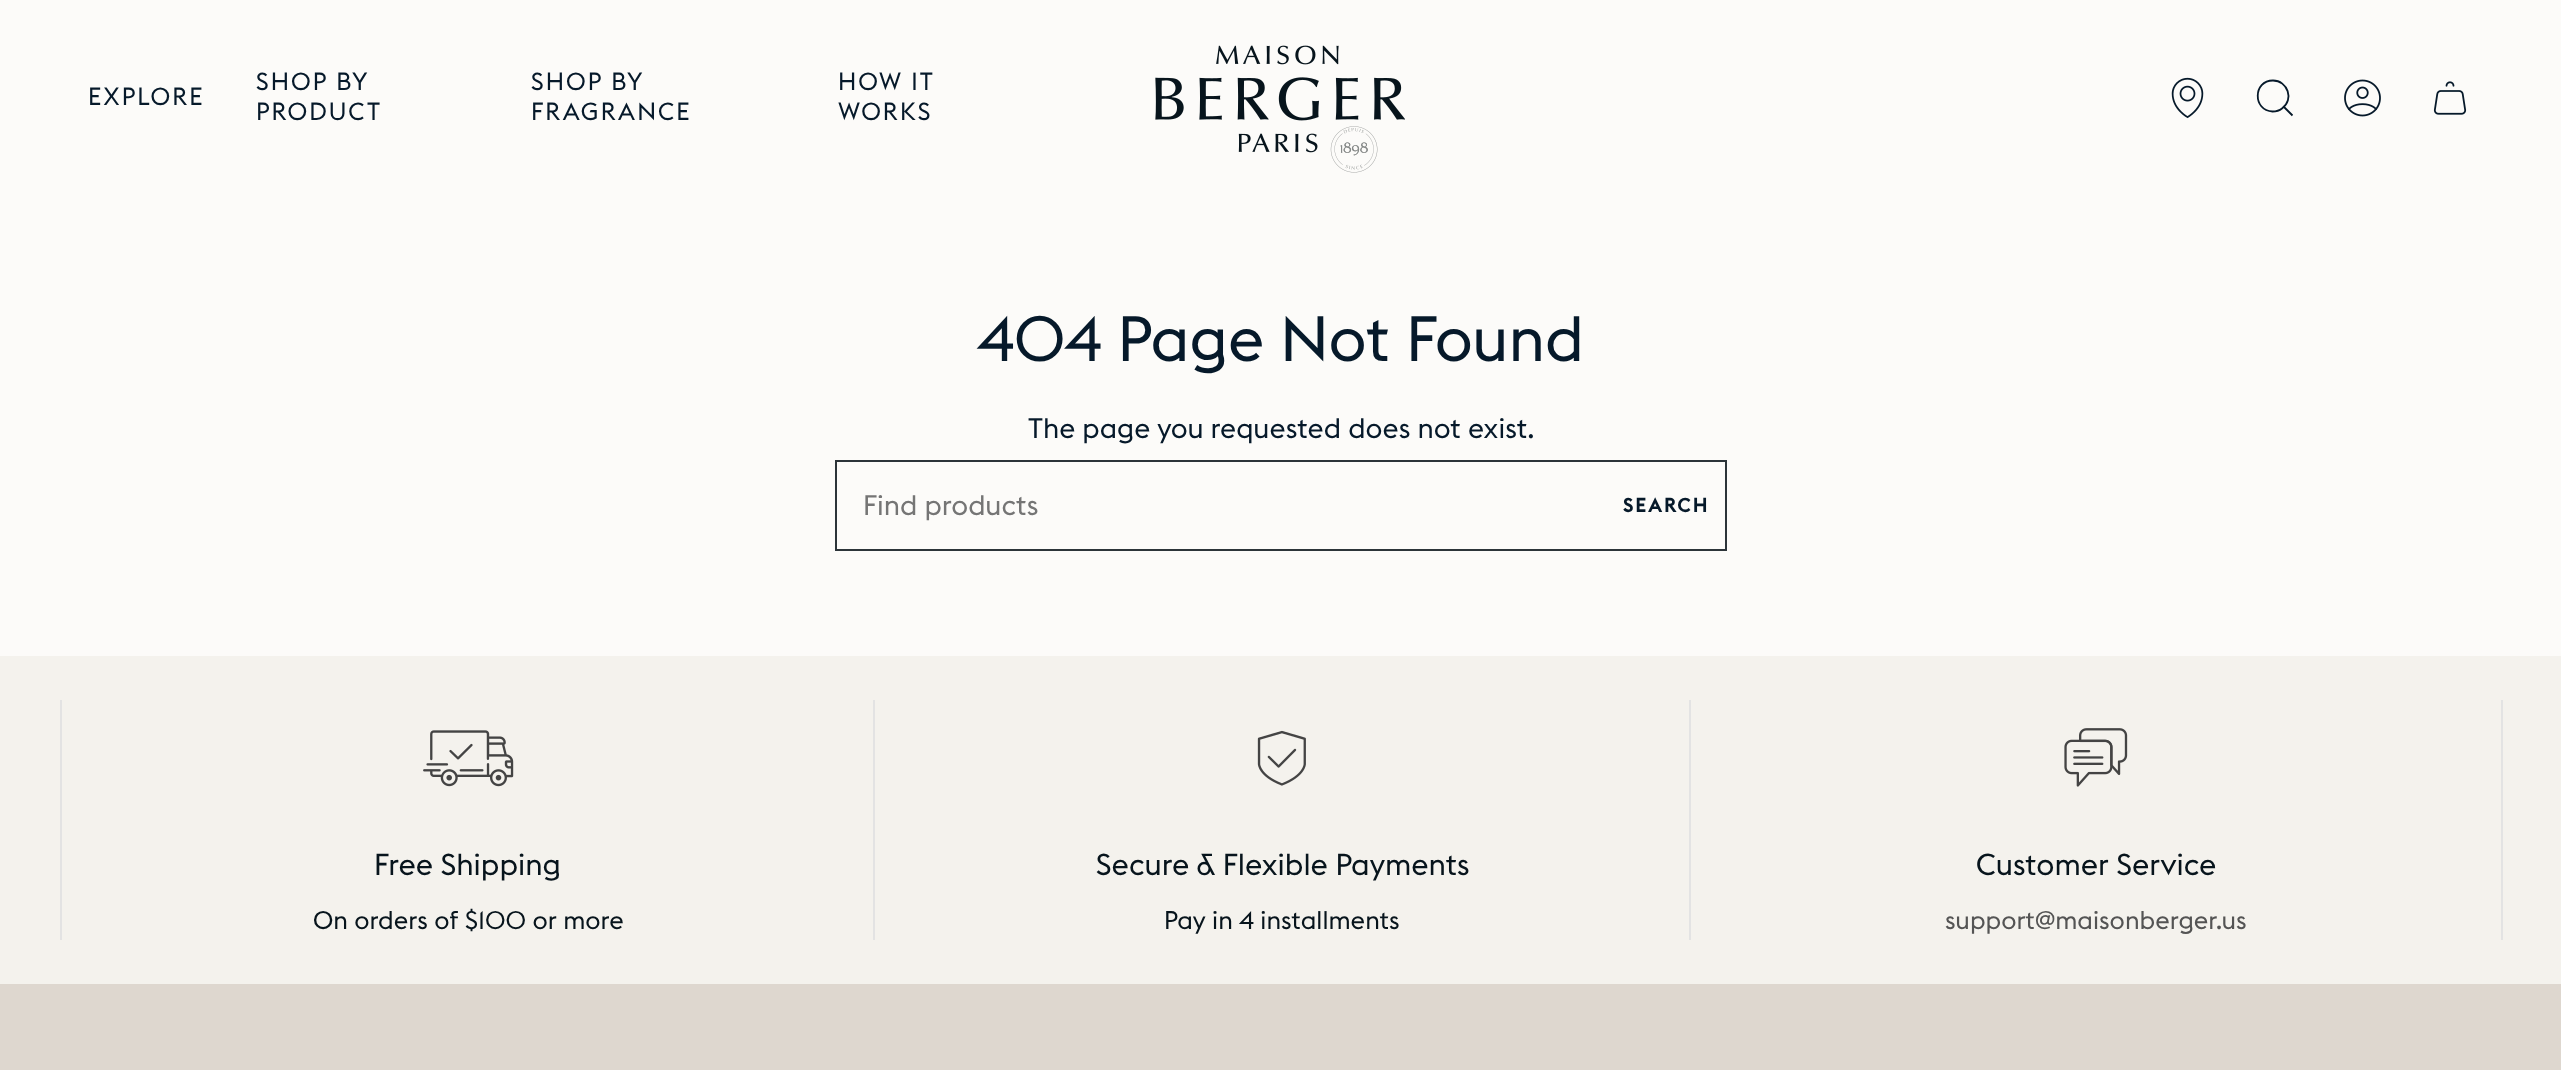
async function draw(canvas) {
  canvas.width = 2561
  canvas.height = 1070
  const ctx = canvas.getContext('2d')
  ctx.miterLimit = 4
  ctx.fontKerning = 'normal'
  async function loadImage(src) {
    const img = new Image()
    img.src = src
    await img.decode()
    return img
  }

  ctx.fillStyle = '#fcfbf9'
  ctx.fillRect(0, 0, 2561, 1070)
  ctx.letterSpacing = '2px'
  ctx.font = '24.5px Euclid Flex'
  ctx.fillStyle = '#06192a'
  ctx.fillText('EXPLORE', 88, 105)
  ctx.fillText('SHOP BY', 256, 90)
  ctx.fillText('PRODUCT', 256, 120)
  ctx.fillText('SHOP BY', 531, 90)
  ctx.fillText('FRAGRANCE', 531, 120)
  ctx.fillText('HOW IT', 838, 90)
  ctx.fillText('WORKS', 838, 120)
  ctx.drawImage(await loadImage('image0.png'), 1155, 45, 250, 128)
  ctx.drawImage(await loadImage('image1.png'), 2171, 77, 33, 42)
  ctx.beginPath()
  ctx.moveTo(2273, 80.5)
  ctx.bezierCurveTo(2287.5, 80.5, 2294.5, 99.5, 2282, 108.5)
  ctx.bezierCurveTo(2279.5, 110.5, 2276, 111.5, 2272.5, 111.5)
  ctx.bezierCurveTo(2252.5, 110.5, 2253, 80.5, 2273, 80.5)
  ctx.closePath()
  ctx.moveTo(2284, 107)
  ctx.lineTo(2292.5, 115.5)
  ctx.strokeStyle = '#06192a'
  ctx.lineWidth = 1.8
  ctx.stroke()
  ctx.drawImage(await loadImage('image2.png'), 2344, 79, 37, 38)
  ctx.drawImage(await loadImage('image3.png'), 2433, 81, 34, 34)
  ctx.letterSpacing = '0px'
  ctx.font = '63px Euclid Flex'
  ctx.fillText('404 Page Not Found', 977, 361)
  ctx.font = '28px Euclid Flex'
  ctx.fillText('The page you requested does not exist.', 1028, 438)
  ctx.strokeStyle = '#2c3439'
  ctx.lineWidth = 2
  ctx.strokeRect(836, 461, 890, 89)
  ctx.fillStyle = '#757575'
  ctx.fillText('Find products', 863, 515)
  ctx.letterSpacing = '2.25px'
  ctx.font = 'bold 19.25px Euclid Flex'
  ctx.fillStyle = '#06192a'
  ctx.fillText('SEARCH', 1623, 512)
  ctx.fillStyle = '#f4f2ed'
  ctx.fillRect(0, 656, 2561, 328)
  ctx.fillStyle = '#e3e3e3'
  ctx.fillRect(60, 700, 2, 240)
  ctx.drawImage(await loadImage('image4.png'), 423, 730, 91, 57)
  ctx.letterSpacing = '0px'
  ctx.font = '30px Euclid Flex'
  ctx.fillStyle = '#07141c'
  ctx.fillText('Free Shipping', 374, 875)
  ctx.font = '25.25px Euclid Flex'
  ctx.fillText('On orders of $100 or more', 313, 929)
  ctx.fillStyle = '#e3e3e3'
  ctx.fillRect(873, 700, 2, 240)
  ctx.drawImage(await loadImage('image5.png'), 1257, 730, 49, 56)
  ctx.font = '30px Euclid Flex'
  ctx.fillStyle = '#07141c'
  ctx.fillText('Secure & Flexible Payments', 1096, 875)
  ctx.font = '25.25px Euclid Flex'
  ctx.fillText('Pay in 4 installments', 1164, 929)
  ctx.fillStyle = '#e3e3e3'
  ctx.fillRect(2501, 700, 2, 240)
  ctx.fillRect(1689, 700, 2, 240)
  ctx.drawImage(await loadImage('image6.png'), 2064, 728, 64, 59)
  ctx.font = '30px Euclid Flex'
  ctx.fillStyle = '#07141c'
  ctx.fillText('Customer Service', 1976, 875)
  ctx.font = '25.25px Euclid Flex'
  ctx.fillStyle = '#545454'
  ctx.fillText('support@maisonberger.us', 1945, 929)
  ctx.fillStyle = '#ded7cf'
  ctx.fillRect(0, 984, 2561, 86)
}

draw(document.querySelector('canvas'))
